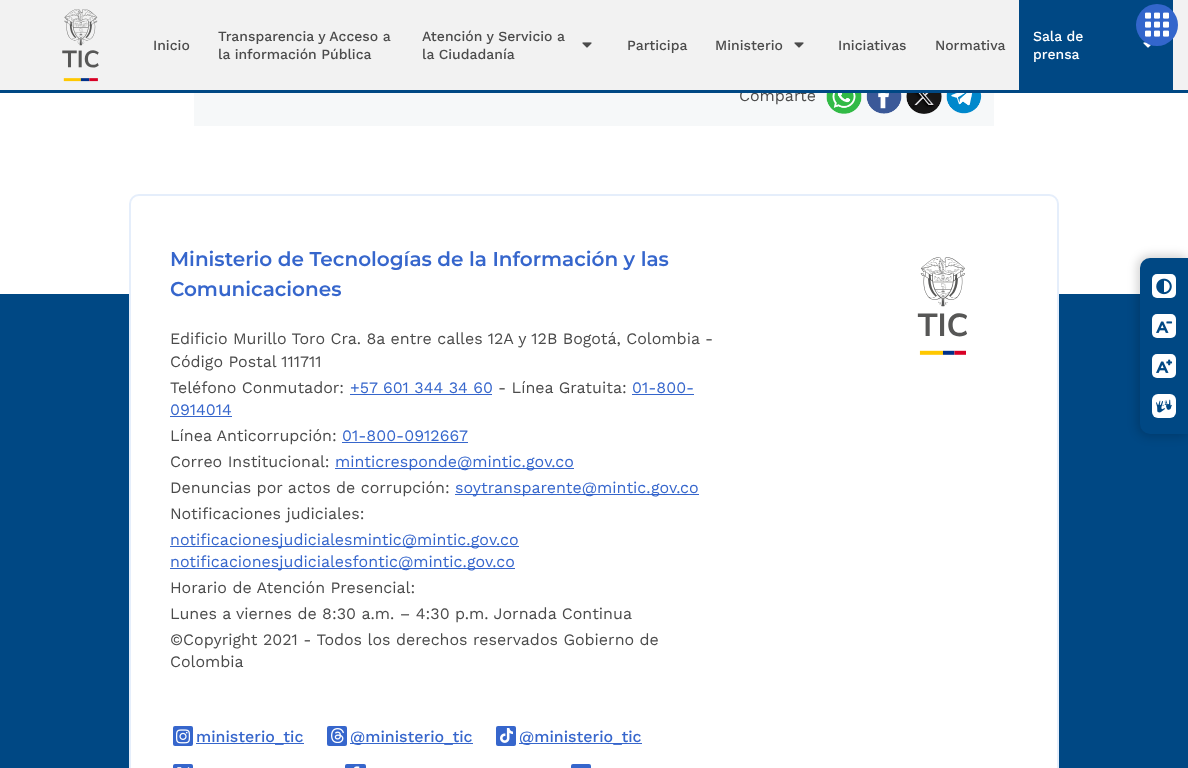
async function draw(canvas) {
  canvas.width = 1188
  canvas.height = 768
  const ctx = canvas.getContext('2d')
  ctx.miterLimit = 4
  ctx.fontKerning = 'normal'
  async function loadImage(src) {
    const img = new Image()
    img.src = src
    await img.decode()
    return img
  }

  ctx.fillStyle = '#fff'
  ctx.fillRect(0, 0, 1188, 768)
  ctx.fillStyle = '#f2f2f2'
  ctx.fillRect(0, 0, 1188, 90)
  ctx.fillStyle = '#004884'
  ctx.fillRect(1019, 0, 154, 90)
  ctx.drawImage(await loadImage('image3.png'), 1143, 42, 8, 6)
  ctx.fillStyle = '#36c'
  ctx.beginPath()
  ctx.arc(1157, 25, 21, 0, 2 * Math.PI)
  ctx.fill()
  ctx.drawImage(await loadImage('image0.png'), 1145, 12, 24, 25)
  ctx.fillStyle = '#f6f8f9'
  ctx.fillRect(194, 93, 800, 33)
  ctx.font = '16px Work Sans'
  ctx.fillStyle = '#4b4b4b'
  ctx.fillText('Comparte', 739, 101)
  ctx.fillStyle = '#004884'
  ctx.fillRect(0, 90, 1188, 3)
  ctx.drawImage(await loadImage('image1.png'), 62, 9, 37, 73)
  ctx.font = '500 14px Work Sans'
  ctx.fillStyle = '#4b4b4b'
  ctx.fillText('Inicio', 153, 50)
  ctx.fillText('Transparencia y Acceso a', 218, 41)
  ctx.fillText('la información Pública', 218, 59)
  ctx.fillText('Atención y Servicio a', 422, 41)
  ctx.drawImage(await loadImage('image2.png'), 582, 42, 10, 6)
  ctx.fillText('la Ciudadanía', 422, 59)
  ctx.fillText('Participa', 627, 50)
  ctx.fillText('Ministerio', 715, 50)
  ctx.drawImage(await loadImage('image2.png'), 794, 42, 10, 6)
  ctx.fillText('Iniciativas', 838, 50)
  ctx.fillText('Normativa', 935, 50)
  ctx.fillStyle = '#fff'
  ctx.fillText('Sala de', 1033, 41)
  ctx.fillText('prensa', 1033, 59)
  ctx.drawImage(await loadImage('image4.png'), 826, 93, 36, 21)
  ctx.drawImage(await loadImage('image5.png'), 866, 93, 36, 21)
  ctx.drawImage(await loadImage('image6.png'), 906, 93, 36, 21)
  ctx.drawImage(await loadImage('image7.png'), 946, 93, 36, 21)
  ctx.fillStyle = '#004884'
  ctx.fillRect(0, 294, 1188, 474)
  ctx.fillStyle = '#fff'
  ctx.beginPath()
  ctx.roundRect(130, 195, 928, 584, 9)
  ctx.fill()
  ctx.strokeStyle = '#e5eefb'
  ctx.lineWidth = 2
  ctx.stroke()
  ctx.font = '600 20px Montserrat'
  ctx.fillStyle = '#3666cc'
  ctx.fillText('Ministerio de Tecnologías de la Información y las', 170, 266)
  ctx.fillText('Comunicaciones', 170, 296)
  ctx.font = '16px Work Sans'
  ctx.fillStyle = '#4b4b4b'
  ctx.fillText('Edificio Murillo Toro Cra. 8a entre calles 12A y 12B Bogotá, Colombia -', 170, 344)
  ctx.fillText('Código Postal 111711', 170, 367)
  ctx.fillText('Teléfono Conmutador:', 170, 393)
  ctx.fillStyle = '#3666cc'
  ctx.fillText('+57 601 344 34 60', 350, 393)
  ctx.fillRect(350, 394, 142, 1)
  ctx.fillStyle = '#4b4b4b'
  ctx.fillText('- Línea Gratuita:', 498, 393)
  ctx.fillStyle = '#3666cc'
  ctx.fillText('01-800-', 632, 393)
  ctx.fillRect(632, 394, 62, 1)
  ctx.fillText('0914014', 170, 415)
  ctx.fillRect(170, 416, 62, 1)
  ctx.fillStyle = '#4b4b4b'
  ctx.fillText('Línea Anticorrupción:', 170, 441)
  ctx.fillStyle = '#3666cc'
  ctx.fillText('01-800-0912667', 342, 441)
  ctx.fillRect(342, 442, 126, 1)
  ctx.fillStyle = '#4b4b4b'
  ctx.fillText('Correo Institucional:', 170, 467)
  ctx.fillStyle = '#3666cc'
  ctx.fillRect(335, 468, 239, 1)
  ctx.fillText('minticresponde@mintic.gov.co', 335, 467)
  ctx.fillStyle = '#4b4b4b'
  ctx.fillText('Denuncias por actos de corrupción:', 170, 493)
  ctx.fillStyle = '#3666cc'
  ctx.fillRect(455, 494, 244, 1)
  ctx.fillText('soytransparente@mintic.gov.co', 455, 493)
  ctx.fillStyle = '#4b4b4b'
  ctx.fillText('Notificaciones judiciales:', 170, 519)
  ctx.fillStyle = '#3666cc'
  ctx.fillRect(170, 546, 349, 1)
  ctx.fillText('notificacionesjudicialesmintic@mintic.gov.co', 170, 545)
  ctx.fillRect(170, 568, 345, 1)
  ctx.fillText('notificacionesjudicialesfontic@mintic.gov.co', 170, 567)
  ctx.fillStyle = '#4b4b4b'
  ctx.fillText('Horario de Atención Presencial:', 170, 593)
  ctx.fillText('Lunes a viernes de 8:30 a.m. – 4:30 p.m. Jornada Continua', 170, 619)
  ctx.fillText('©Copyright 2021 - Todos los derechos reservados Gobierno de', 170, 645)
  ctx.fillText('Colombia', 170, 667)
  ctx.drawImage(await loadImage('image8.png'), 917, 257, 50, 98)
  ctx.fillStyle = '#3666cc'
  ctx.beginPath()
  ctx.roundRect(173, 726, 20, 20, 2)
  ctx.fill()
  ctx.drawImage(await loadImage('image9.png'), 176, 729, 14, 15)
  ctx.fillRect(196, 743, 108, 1)
  ctx.font = '500 16px Work Sans'
  ctx.fillText('ministerio_tic', 196, 742)
  ctx.beginPath()
  ctx.roundRect(327, 726, 20, 20, 2)
  ctx.fill()
  ctx.drawImage(await loadImage('image10.png'), 331, 728, 13, 15)
  ctx.fillRect(350, 743, 123, 1)
  ctx.fillText('@ministerio_tic', 350, 742)
  ctx.beginPath()
  ctx.roundRect(496, 726, 20, 20, 2)
  ctx.fill()
  ctx.drawImage(await loadImage('image11.png'), 500, 728, 13, 15)
  ctx.fillRect(519, 743, 123, 1)
  ctx.fillText('@ministerio_tic', 519, 742)
  ctx.beginPath()
  ctx.roundRect(173, 764, 20, 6, 2)
  ctx.fill()
  ctx.drawImage(await loadImage('image12.png'), 177, 767, 13, 1)
  ctx.beginPath()
  ctx.roundRect(345, 764, 21, 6, 2)
  ctx.fill()
  ctx.drawImage(await loadImage('image13.png'), 354, 766, 6, 2)
  ctx.beginPath()
  ctx.roundRect(571, 764, 20, 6, 2)
  ctx.fill()
  ctx.fillStyle = '#0000002b'
  ctx.filter = 'blur(5px)'
  ctx.beginPath()
  ctx.roundRect(1137, 255, 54, 182, 13)
  ctx.fill()
  ctx.filter = 'none'
  ctx.fillStyle = '#004884'
  ctx.beginPath()
  ctx.roundRect(1140, 258, 48, 176, [10, 0, 0, 10])
  ctx.fill()
  ctx.fillStyle = '#fff'
  ctx.beginPath()
  ctx.roundRect(1152, 274, 24, 24, 5)
  ctx.fill()
  ctx.drawImage(await loadImage('image14.png'), 1156, 278, 16, 17)
  ctx.beginPath()
  ctx.roundRect(1152, 314, 24, 24, 5)
  ctx.fill()
  ctx.drawImage(await loadImage('image15.png'), 1156, 321, 17, 12)
  ctx.beginPath()
  ctx.roundRect(1152, 354, 24, 24, 5)
  ctx.fill()
  ctx.drawImage(await loadImage('image16.png'), 1156, 359, 17, 14)
  ctx.beginPath()
  ctx.roundRect(1152, 394, 24, 24, 6)
  ctx.fill()
  ctx.drawImage(await loadImage('image17.png'), 1156, 399, 16, 14)
}

draw(document.querySelector('canvas'))
